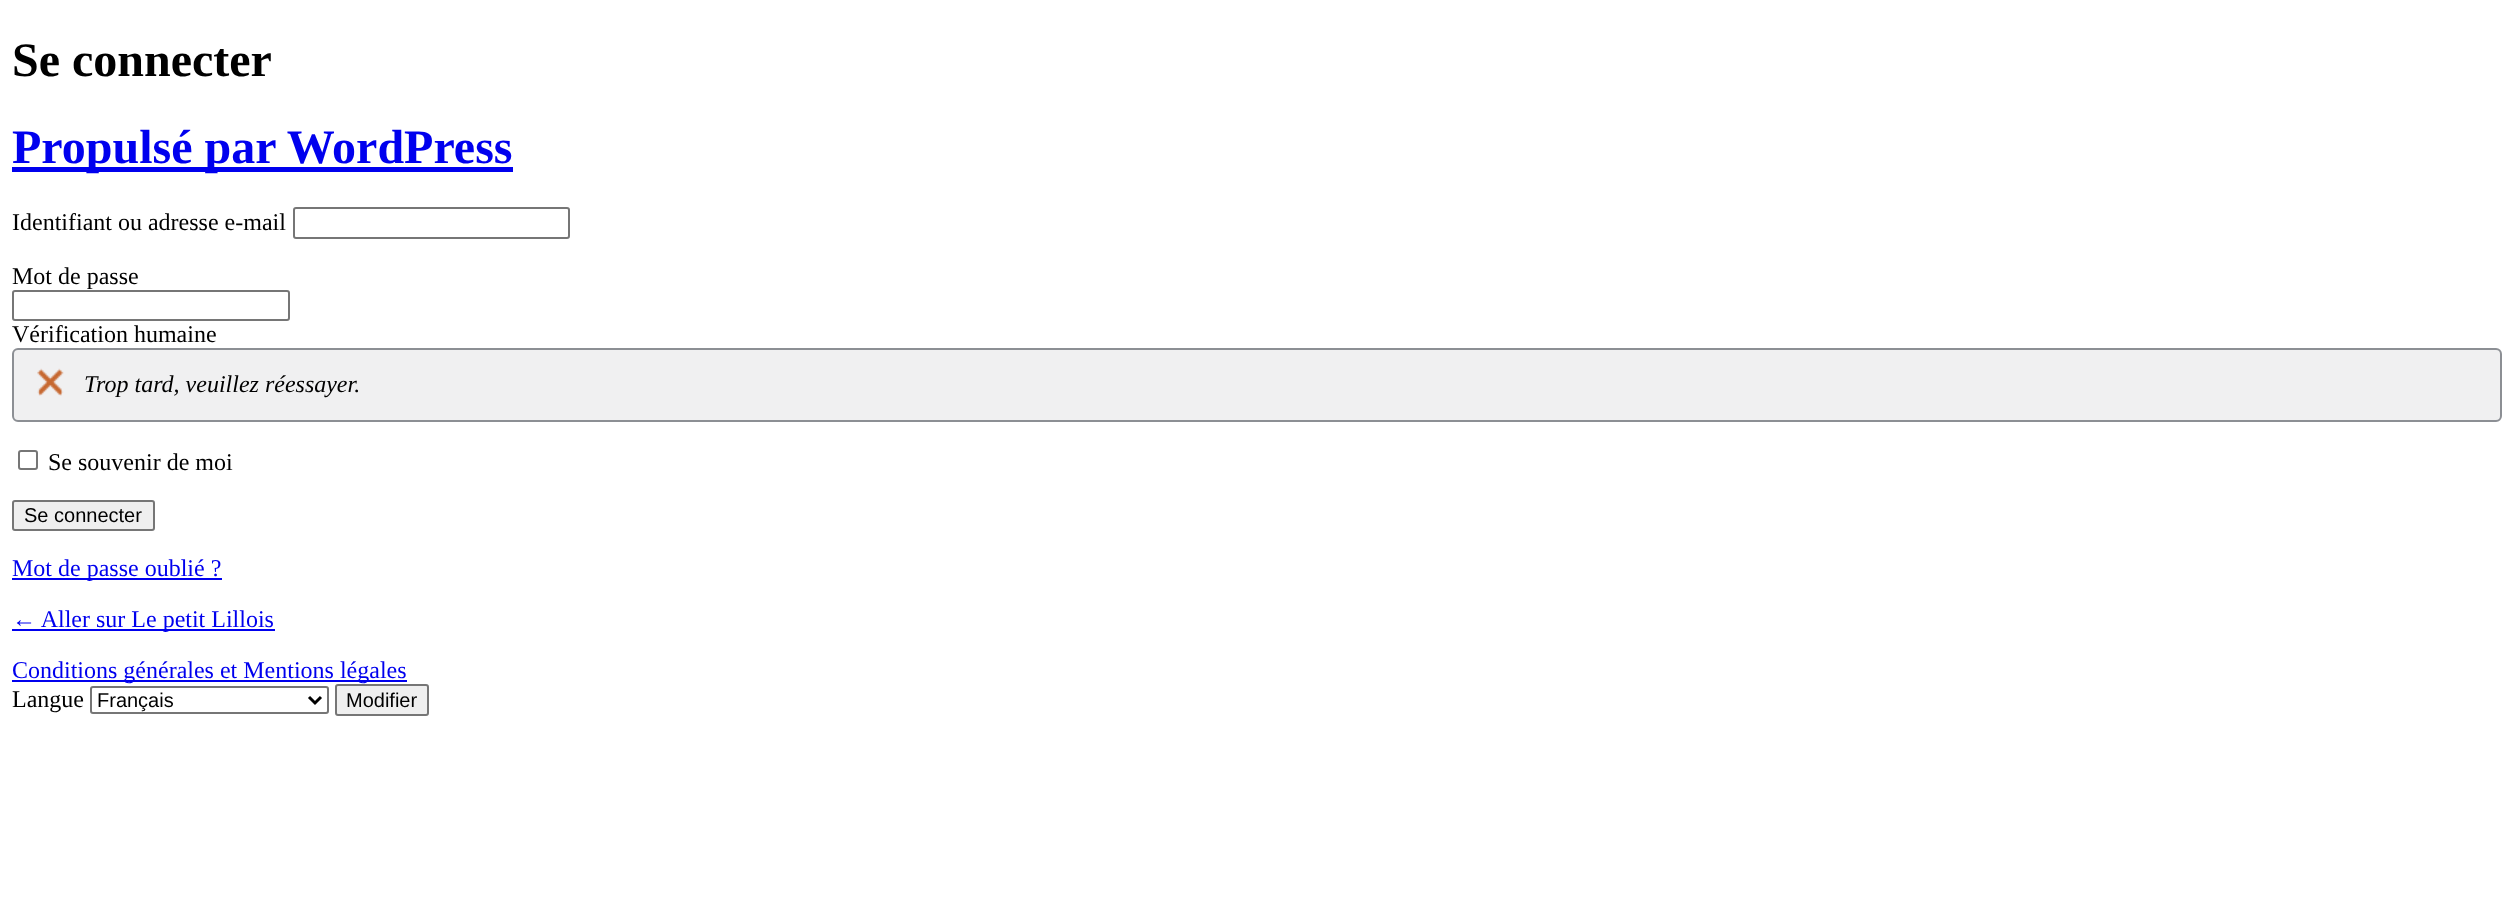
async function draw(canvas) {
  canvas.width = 2514
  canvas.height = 902
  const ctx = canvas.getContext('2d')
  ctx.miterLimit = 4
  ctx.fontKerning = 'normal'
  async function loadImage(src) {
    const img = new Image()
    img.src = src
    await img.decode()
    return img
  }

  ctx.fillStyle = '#fff'
  ctx.fillRect(0, 0, 2514, 902)
  ctx.font = 'bold 48px Liberation Serif'
  ctx.fillStyle = '#000'
  ctx.fillText('Se connecter', 12, 76)
  ctx.fillStyle = '#00e'
  ctx.fillRect(12, 167, 501, 5)
  ctx.fillText('Propulsé par WordPress', 12, 163)
  ctx.font = '24px Liberation Serif'
  ctx.fillStyle = '#000'
  ctx.fillText('Identifiant ou adresse e-mail', 12, 230)
  ctx.beginPath()
  ctx.roundRect(294, 208, 275, 30, 2)
  ctx.strokeStyle = '#767676'
  ctx.lineWidth = 2
  ctx.stroke()
  ctx.fillText('Mot de passe', 12, 284)
  ctx.beginPath()
  ctx.roundRect(13, 291, 276, 29, 2)
  ctx.stroke()
  ctx.fillText('Vérification humaine', 12, 342)
  ctx.fillStyle = '#f0f0f1'
  ctx.beginPath()
  ctx.roundRect(13, 349, 2488, 72, 5)
  ctx.fill()
  ctx.strokeStyle = '#8c8f94'
  ctx.stroke()
  ctx.drawImage(await loadImage('image0.png'), 37, 368, 27, 28)
  ctx.font = 'italic 24px Liberation Serif'
  ctx.fillStyle = '#000'
  ctx.fillText('Trop tard, veuillez réessayer.', 84, 392)
  ctx.beginPath()
  ctx.roundRect(19, 451, 18, 18, 2)
  ctx.strokeStyle = '#767676'
  ctx.stroke()
  ctx.font = '24px Liberation Serif'
  ctx.fillText('Se souvenir de moi', 48, 470)
  ctx.fillStyle = '#efefef'
  ctx.beginPath()
  ctx.roundRect(13, 501, 141, 29, 2)
  ctx.fill()
  ctx.stroke()
  ctx.font = '20px Liberation Sans'
  ctx.fillStyle = '#000'
  ctx.fillText('Se connecter', 24, 522)
  ctx.fillStyle = '#00e'
  ctx.fillRect(12, 578, 210, 2)
  ctx.font = '24px Liberation Serif'
  ctx.fillText('Mot de passe oublié ?', 12, 576)
  ctx.fillRect(12, 629, 263, 2)
  ctx.fillText('← Aller sur Le petit Lillois', 12, 627)
  ctx.fillRect(12, 680, 395, 2)
  ctx.fillText('Conditions générales et Mentions légales', 12, 678)
  ctx.fillStyle = '#000'
  ctx.fillText('Langue', 12, 707)
  ctx.beginPath()
  ctx.roundRect(91, 687, 237, 26, 2)
  ctx.stroke()
  ctx.beginPath()
  ctx.moveTo(309, 697)
  ctx.lineTo(315, 703)
  ctx.lineTo(321, 697)
  ctx.strokeStyle = '#000'
  ctx.lineWidth = 3
  ctx.stroke()
  ctx.font = '20px Liberation Sans'
  ctx.fillText('Français', 97, 707)
  ctx.fillStyle = '#efefef'
  ctx.beginPath()
  ctx.roundRect(336, 685, 92, 30, 2)
  ctx.fill()
  ctx.strokeStyle = '#767676'
  ctx.lineWidth = 2
  ctx.stroke()
  ctx.fillStyle = '#000'
  ctx.fillText('Modifier', 346, 707)
}

draw(document.querySelector('canvas'))
